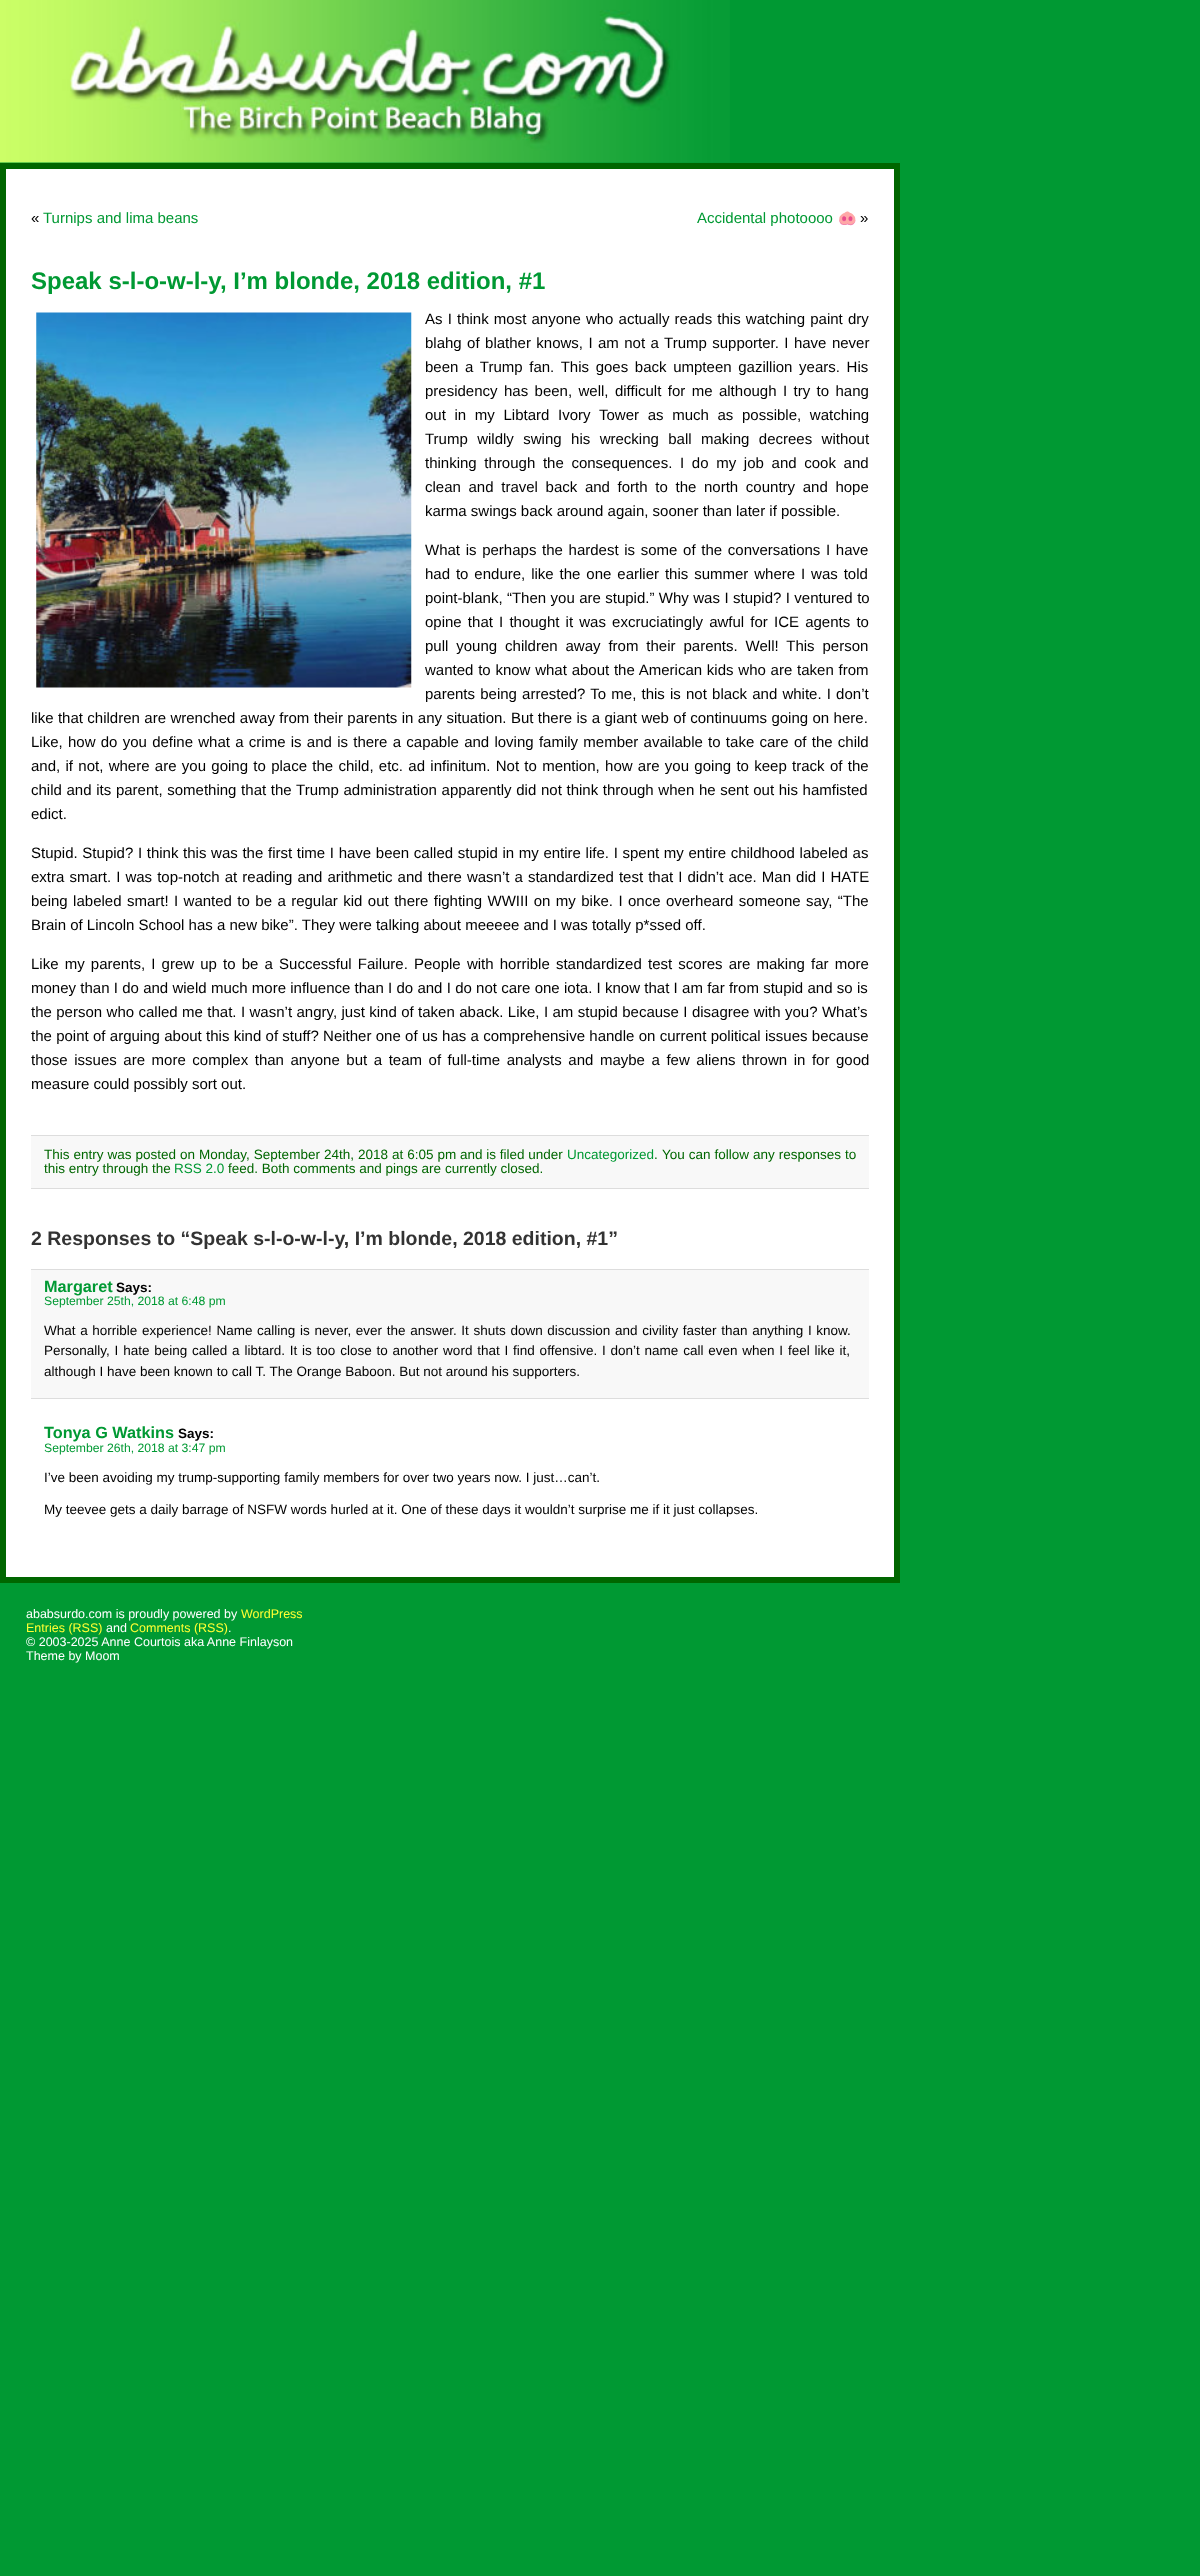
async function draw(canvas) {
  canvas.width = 1200
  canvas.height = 2576
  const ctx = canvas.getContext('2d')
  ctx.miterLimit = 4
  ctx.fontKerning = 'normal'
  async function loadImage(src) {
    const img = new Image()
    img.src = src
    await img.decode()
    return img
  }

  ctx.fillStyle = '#093'
  ctx.fillRect(0, 0, 1200, 2576)
  ctx.drawImage(await loadImage('image0.png'), 0, 0, 730, 163)
  ctx.fillStyle = '#fff'
  ctx.beginPath()
  ctx.rect(3, 166, 894, 1414)
  ctx.fill()
  ctx.strokeStyle = '#060'
  ctx.lineWidth = 6
  ctx.stroke()
  ctx.font = '15px Liberation Sans'
  ctx.fillStyle = '#000'
  ctx.fillText('«', 31, 223)
  ctx.fillStyle = '#093'
  ctx.fillText('Turnips and lima beans', 43, 223)
  ctx.fillText('Accidental photoooo', 697, 223)
  ctx.font = '15px Noto Color Emoji'
  ctx.fillText('🐽', 838, 223)
  ctx.font = '15px Liberation Sans'
  ctx.fillStyle = '#000'
  ctx.fillText('»', 860, 223)
  ctx.font = 'bold 24px Liberation Sans'
  ctx.fillStyle = '#093'
  ctx.fillText('Speak s-l-o-w-l-y, I’m blonde, 2018 edition, #1', 31, 289)
  ctx.drawImage(await loadImage('image1.png'), 36, 312, 376, 376)
  ctx.wordSpacing = '1px'
  ctx.font = '15px Liberation Sans'
  ctx.fillStyle = '#000'
  ctx.fillText('As I think most anyone who actually reads this watching paint dry', 425, 324)
  ctx.wordSpacing = '1.25px'
  ctx.fillText('blahg of blather knows, I am not a Trump supporter. I have never', 425, 348)
  ctx.wordSpacing = '2.5px'
  ctx.fillText('been a Trump fan. This goes back umpteen gazillion years. His', 425, 372)
  ctx.wordSpacing = '2.25px'
  ctx.fillText('presidency has been, well, difficult for me although I try to hang', 425, 396)
  ctx.wordSpacing = '4.5px'
  ctx.fillText('out in my Libtard Ivory Tower as much as possible, watching', 425, 420)
  ctx.wordSpacing = '5.25px'
  ctx.fillText('Trump wildly swing his wrecking ball making decrees without', 425, 444)
  ctx.wordSpacing = '3.5px'
  ctx.fillText('thinking through the consequences. I do my job and cook and', 425, 468)
  ctx.fillText('clean and travel back and forth to the north country and hope', 425, 492)
  ctx.wordSpacing = '0px'
  ctx.fillText('karma swings back around again, sooner than later if possible.', 425, 516)
  ctx.wordSpacing = '1.5px'
  ctx.fillText('What is perhaps the hardest is some of the conversations I have', 425, 555)
  ctx.wordSpacing = '1.75px'
  ctx.fillText('had to endure, like the one earlier this summer where I was told', 425, 579)
  ctx.wordSpacing = '0.25px'
  ctx.fillText('point-blank, “Then you are stupid.” Why was I stupid? I ventured to', 425, 603)
  ctx.wordSpacing = '2px'
  ctx.fillText('opine that I thought it was excruciatingly awful for ICE agents to', 425, 627)
  ctx.wordSpacing = '3.75px'
  ctx.fillText('pull young children away from their parents. Well! This person', 425, 651)
  ctx.wordSpacing = '0.6px'
  ctx.fillText('wanted to know what about the American kids who are taken from', 425, 675)
  ctx.wordSpacing = '1px'
  ctx.fillText('parents being arrested? To me, this is not black and white. I don’t', 425, 699)
  ctx.wordSpacing = '0.25px'
  ctx.fillText('like that children are wrenched away from their parents in any situation. But there is a giant web of continuums going on here.', 31, 723)
  ctx.wordSpacing = '1.1px'
  ctx.fillText('Like, how do you define what a crime is and is there a capable and loving family member available to take care of the child', 31, 747)
  ctx.wordSpacing = '1.15px'
  ctx.fillText('and, if not, where are you going to place the child, etc. ad infinitum. Not to mention, how are you going to keep track of the', 31, 771)
  ctx.wordSpacing = '0.5px'
  ctx.fillText('child and its parent, something that the Trump administration apparently did not think through when he sent out his hamfisted', 31, 795)
  ctx.wordSpacing = '0px'
  ctx.fillText('edict.', 31, 819)
  ctx.wordSpacing = '0.5px'
  ctx.fillText('Stupid. Stupid? I think this was the first time I have been called stupid in my entire life. I spent my entire childhood labeled as', 31, 858)
  ctx.wordSpacing = '0.9px'
  ctx.fillText('extra smart. I was top-notch at reading and arithmetic and there wasn’t a standardized test that I didn’t ace. Man did I HATE', 31, 882)
  ctx.wordSpacing = '1.25px'
  ctx.fillText('being labeled smart! I wanted to be a regular kid out there fighting WWIII on my bike. I once overheard someone say, “The', 31, 906)
  ctx.wordSpacing = '0px'
  ctx.fillText('Brain of Lincoln School has a new bike”. They were talking about meeeee and I was totally p*ssed off.', 31, 930)
  ctx.wordSpacing = '2px'
  ctx.fillText('Like my parents, I grew up to be a Successful Failure. People with horrible standardized test scores are making far more', 31, 969)
  ctx.wordSpacing = '0.1px'
  ctx.fillText('money than I do and wield much more influence than I do and I do not care one iota. I know that I am far from stupid and so is', 31, 993)
  ctx.wordSpacing = '0.25px'
  ctx.fillText('the person who called me that. I wasn’t angry, just kind of taken aback. Like, I am stupid because I disagree with you? What’s', 31, 1017)
  ctx.wordSpacing = '0.15px'
  ctx.fillText('the point of arguing about this kind of stuff? Neither one of us has a comprehensive handle on current political issues because', 31, 1041)
  ctx.wordSpacing = '2.4px'
  ctx.fillText('those issues are more complex than anyone but a team of full-time analysts and maybe a few aliens thrown in for good', 31, 1065)
  ctx.wordSpacing = '0px'
  ctx.fillText('measure could possibly sort out.', 31, 1089)
  ctx.fillStyle = '#f8f8f8'
  ctx.fillRect(31, 1136, 838, 52)
  ctx.fillStyle = '#ddd'
  ctx.fillRect(31, 1135, 838, 1)
  ctx.fillRect(31, 1188, 838, 1)
  ctx.wordSpacing = '0.25px'
  ctx.font = '13.5px Liberation Sans'
  ctx.fillStyle = '#060'
  ctx.fillText('This entry was posted on Monday, September 24th, 2018 at 6:05 pm', 44, 1159)
  ctx.wordSpacing = '0px'
  ctx.fillText('and is filed under', 460, 1159)
  ctx.fillStyle = '#093'
  ctx.fillText('Uncategorized', 567, 1159)
  ctx.fillStyle = '#060'
  ctx.fillText('.', 654, 1159)
  ctx.wordSpacing = '0.25px'
  ctx.fillText('You can follow any responses to', 662, 1159)
  ctx.wordSpacing = '0px'
  ctx.fillText('this entry through the', 44, 1173)
  ctx.fillStyle = '#093'
  ctx.fillText('RSS 2.0', 174, 1173)
  ctx.fillStyle = '#060'
  ctx.fillText('feed. Both comments and pings are currently closed.', 228, 1173)
  ctx.font = 'bold 19.5px Liberation Sans'
  ctx.fillStyle = '#333'
  ctx.fillText('2 Responses to “Speak s-l-o-w-l-y, I’m blonde, 2018 edition, #1”', 31, 1245)
  ctx.fillStyle = '#f8f8f8'
  ctx.fillRect(31, 1270, 838, 128)
  ctx.fillStyle = '#ddd'
  ctx.fillRect(31, 1269, 838, 1)
  ctx.fillRect(31, 1398, 838, 1)
  ctx.font = 'bold 16.25px Liberation Sans'
  ctx.fillStyle = '#093'
  ctx.fillText('Margaret', 44, 1292)
  ctx.font = 'bold 13.5px Liberation Sans'
  ctx.fillStyle = '#000'
  ctx.fillText('Says:', 116, 1292)
  ctx.font = '12.2px Liberation Sans'
  ctx.fillStyle = '#093'
  ctx.fillText('September 25th, 2018 at 6:48 pm', 44, 1305)
  ctx.wordSpacing = '0.9px'
  ctx.font = '13.5px Liberation Sans'
  ctx.fillStyle = '#000'
  ctx.fillText('What a horrible experience! Name calling is never, ever the answer. It shuts down discussion and civility faster than anything I know.', 44, 1335)
  ctx.wordSpacing = '1.05px'
  ctx.fillText('Personally, I hate being called a libtard. It is too close to another word that I find offensive. I don’t name call even when I feel like it,', 44, 1355)
  ctx.wordSpacing = '0px'
  ctx.fillText('although I have been known to call T. The Orange Baboon. But not around his supporters.', 44, 1376)
  ctx.font = 'bold 16.25px Liberation Sans'
  ctx.fillStyle = '#093'
  ctx.fillText('Tonya G Watkins', 44, 1438)
  ctx.font = 'bold 13.5px Liberation Sans'
  ctx.fillStyle = '#000'
  ctx.fillText('Says:', 178, 1438)
  ctx.font = '12.2px Liberation Sans'
  ctx.fillStyle = '#093'
  ctx.fillText('September 26th, 2018 at 3:47 pm', 44, 1452)
  ctx.font = '13.5px Liberation Sans'
  ctx.fillStyle = '#000'
  ctx.fillText('I’ve been avoiding my trump-supporting family members for over two years now. I just…can’t.', 44, 1482)
  ctx.fillText('My teevee gets a daily barrage of NSFW words hurled at it. One of these days it wouldn’t surprise me if it just collapses.', 44, 1514)
  ctx.font = '12.5px Liberation Sans'
  ctx.fillStyle = '#fff'
  ctx.fillText('ababsurdo.com is proudly powered by', 26, 1618)
  ctx.fillStyle = '#ff3'
  ctx.fillText('WordPress', 241, 1618)
  ctx.fillText('Entries (RSS)', 26, 1632)
  ctx.fillStyle = '#fff'
  ctx.fillText('and', 106, 1632)
  ctx.fillStyle = '#ff3'
  ctx.fillText('Comments (RSS)', 130, 1632)
  ctx.fillStyle = '#fff'
  ctx.fillText('.', 228, 1632)
  ctx.fillText('© 2003-2025 Anne Courtois aka Anne Finlayson', 26, 1646)
  ctx.fillText('Theme by Moom', 26, 1660)
}

draw(document.querySelector('canvas'))
